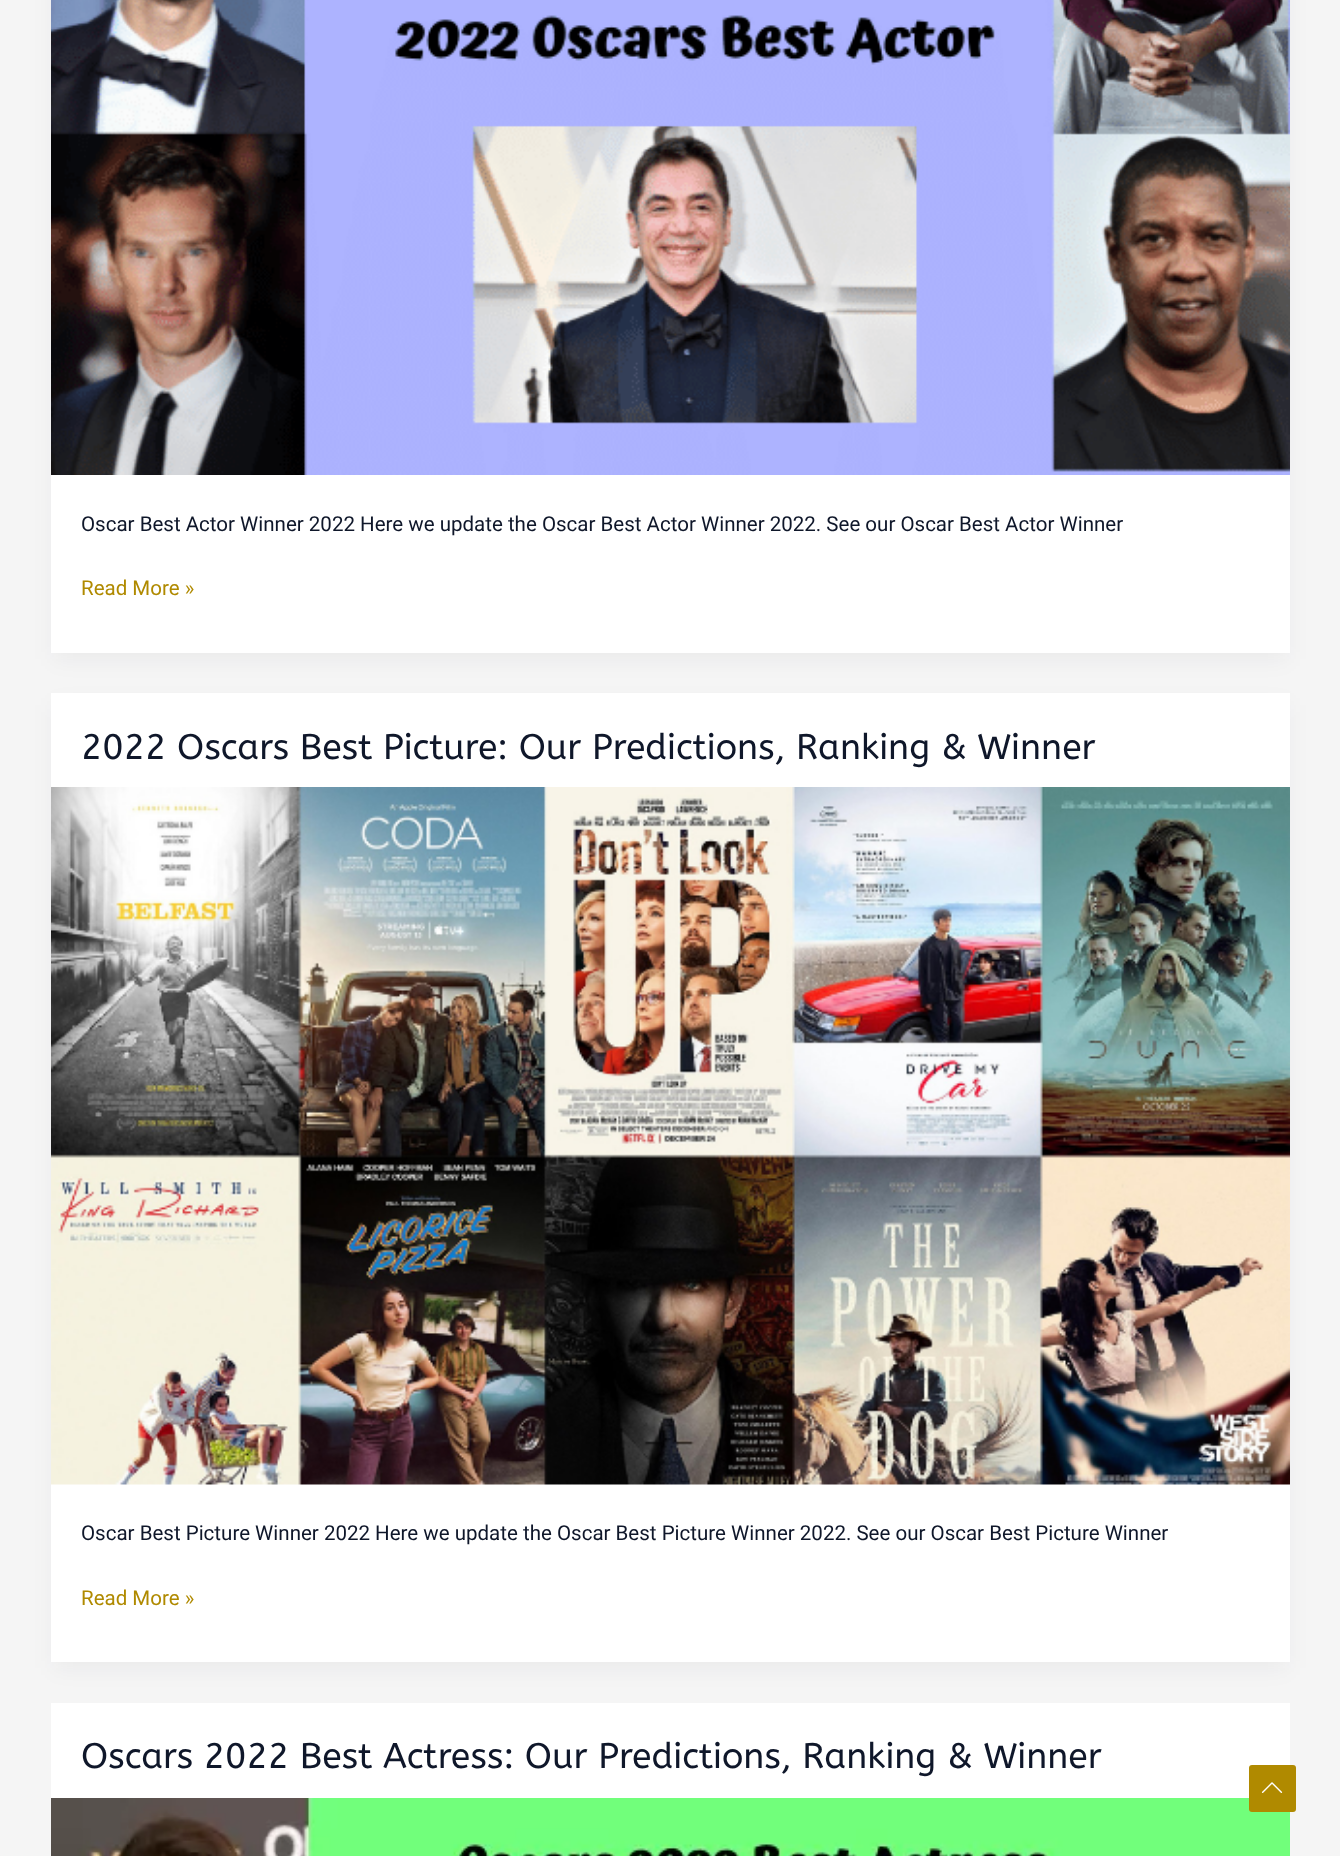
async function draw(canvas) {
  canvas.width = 1340
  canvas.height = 1856
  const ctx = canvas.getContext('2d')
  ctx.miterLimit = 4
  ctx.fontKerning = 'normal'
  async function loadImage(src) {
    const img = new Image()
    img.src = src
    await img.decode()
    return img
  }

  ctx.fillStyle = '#f5f5f5'
  ctx.fillRect(0, 0, 1340, 1856)
  ctx.fillStyle = '#1018280d'
  ctx.filter = 'blur(11px)'
  ctx.beginPath()
  ctx.rect(54, -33, 1233, 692)
  ctx.fill()
  ctx.filter = 'none'
  ctx.fillStyle = '#fff'
  ctx.fillRect(51, 475, 1239, 178)
  ctx.drawImage(await loadImage('image0.png'), 51, 0, 1239, 475)
  ctx.font = '20.52px Roboto'
  ctx.fillStyle = '#0f172a'
  ctx.fillText('Oscar Best Actor Winner 2022 Here we update the Oscar Best Actor Winner 2022. See our Oscar Best Actor Winner', 81, 531)
  ctx.fillStyle = '#b08a00'
  ctx.fillText('Read More »', 81, 595)
  ctx.fillStyle = '#1018280d'
  ctx.filter = 'blur(11px)'
  ctx.beginPath()
  ctx.rect(54, 705, 1233, 963)
  ctx.fill()
  ctx.filter = 'none'
  ctx.fillStyle = '#fff'
  ctx.fillRect(51, 693, 1239, 969)
  ctx.font = '35.6px ABeeZee'
  ctx.fillStyle = '#0f172a'
  ctx.fillText('2022 Oscars Best Picture: Our Predictions, Ranking & Winner', 81, 759)
  ctx.drawImage(await loadImage('image1.png'), 51, 787, 1239, 698)
  ctx.font = '20.52px Roboto'
  ctx.fillText('Oscar Best Picture Winner 2022 Here we update the Oscar Best Picture Winner 2022. See our Oscar Best Picture Winner', 81, 1540)
  ctx.fillStyle = '#b08a00'
  ctx.fillText('Read More »', 81, 1605)
  ctx.fillStyle = '#fff'
  ctx.fillRect(51, 1703, 1239, 95)
  ctx.font = '35.6px ABeeZee'
  ctx.fillStyle = '#0f172a'
  ctx.fillText('Oscars 2022 Best Actress: Our Predictions, Ranking & Winner', 81, 1768)
  ctx.drawImage(await loadImage('image2.png'), 51, 1798, 1239, 58)
  ctx.fillStyle = '#b08a00'
  ctx.beginPath()
  ctx.moveTo(1293, 1812)
  ctx.lineTo(1252, 1812)
  ctx.bezierCurveTo(1250, 1812, 1249, 1811, 1249, 1809)
  ctx.lineTo(1249, 1768)
  ctx.bezierCurveTo(1249, 1766, 1250, 1765, 1252, 1765)
  ctx.lineTo(1293, 1765)
  ctx.bezierCurveTo(1295, 1765, 1296, 1766, 1296, 1768)
  ctx.lineTo(1296, 1809)
  ctx.bezierCurveTo(1296, 1811, 1295, 1812, 1293, 1812)
  ctx.closePath()
  ctx.fill()
  ctx.drawImage(await loadImage('image3.png'), 1261, 1782, 22, 11)
}

draw(document.querySelector('canvas'))
